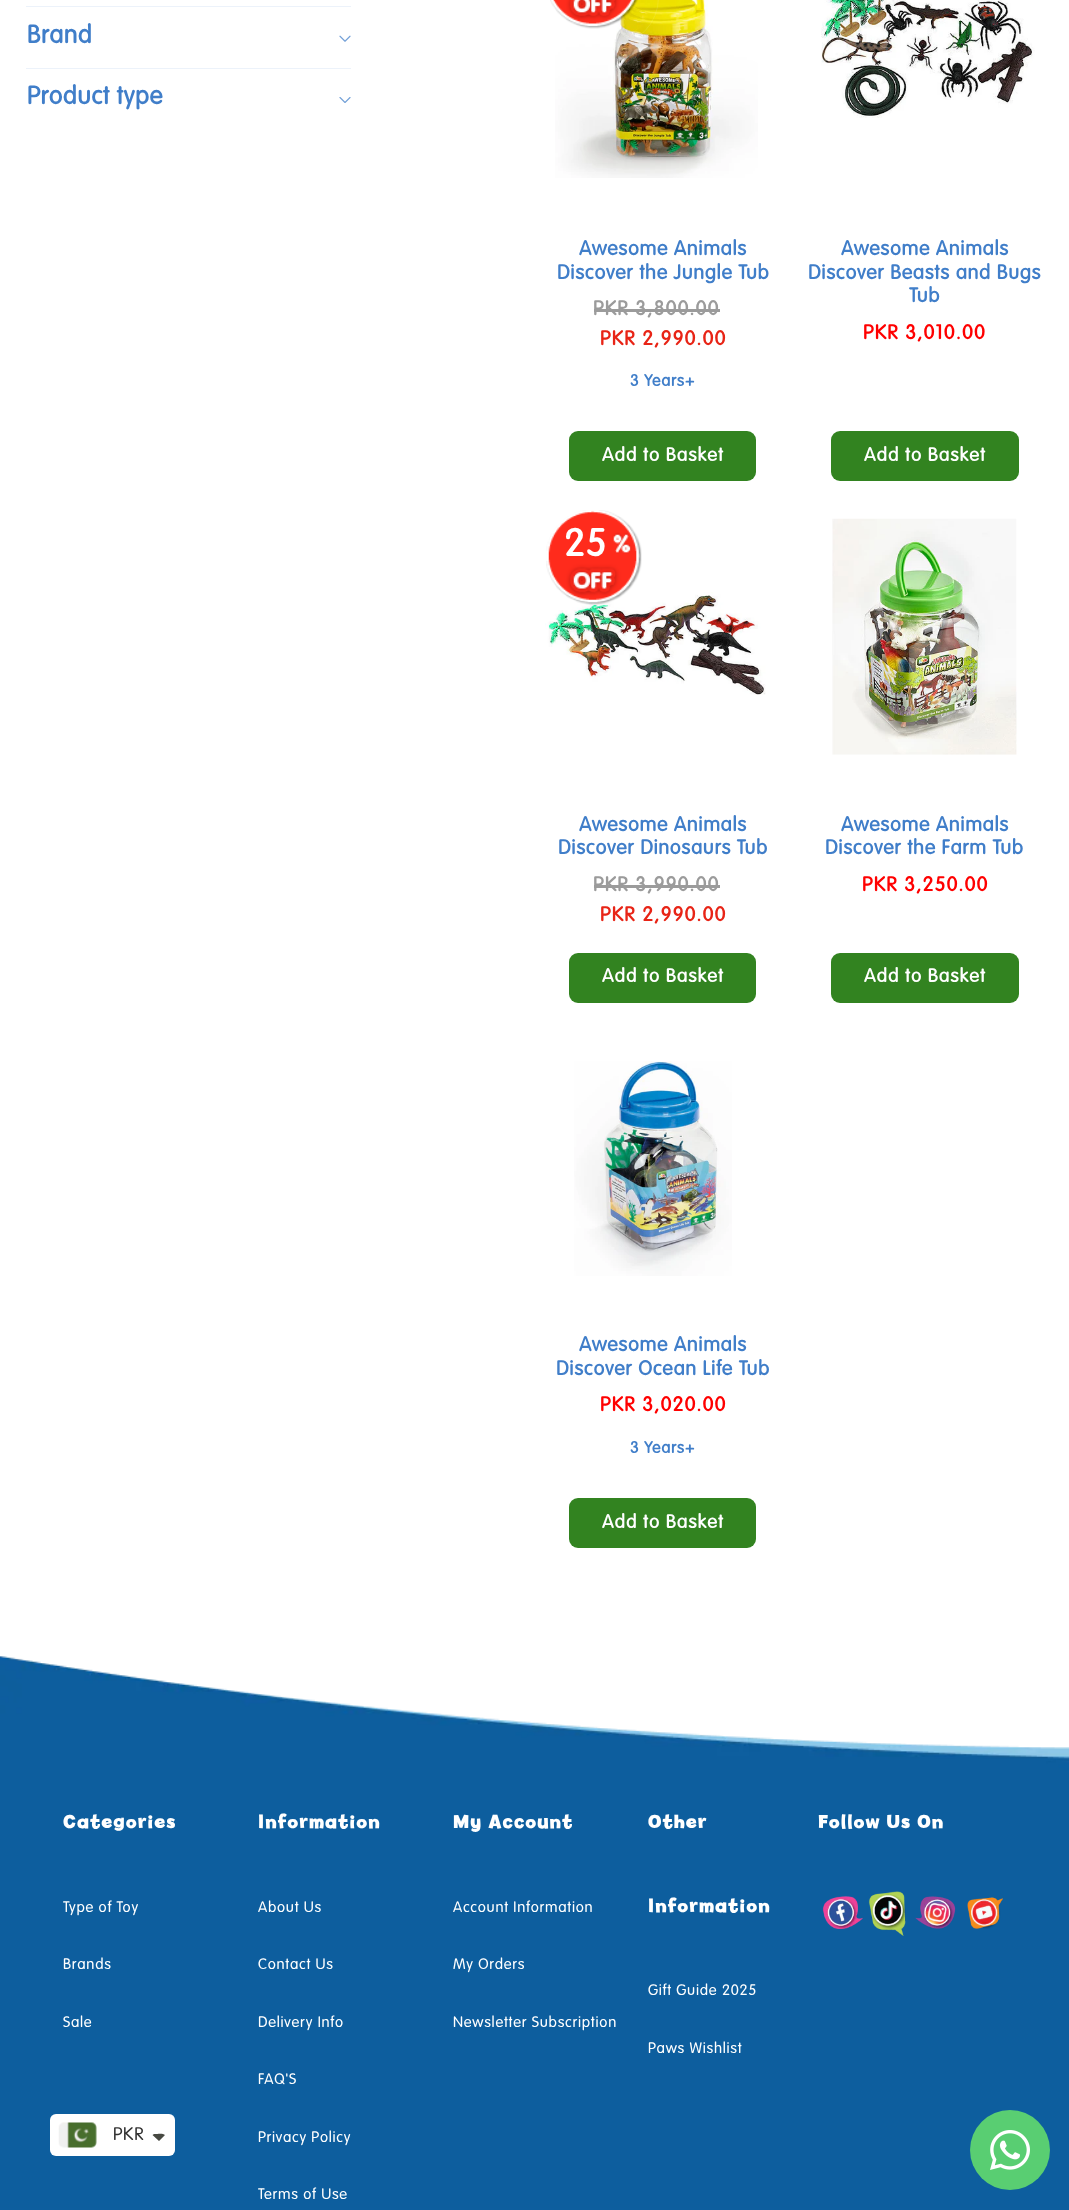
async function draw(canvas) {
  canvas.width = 1069
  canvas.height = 2210
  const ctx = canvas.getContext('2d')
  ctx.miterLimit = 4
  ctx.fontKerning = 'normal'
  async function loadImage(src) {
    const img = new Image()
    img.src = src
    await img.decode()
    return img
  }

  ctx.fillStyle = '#fff'
  ctx.fillRect(0, 0, 1069, 2210)
  ctx.fillStyle = '#ecf2fa'
  ctx.fillRect(26, 6, 325, 1)
  ctx.letterSpacing = '0.5px'
  ctx.font = 'bold 25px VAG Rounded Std'
  ctx.fillStyle = '#407ec9'
  ctx.fillText('Brand', 27, 43)
  ctx.drawImage(await loadImage('image0.png'), 339, 35, 12, 7)
  ctx.fillStyle = '#ecf2fa'
  ctx.fillRect(26, 68, 325, 1)
  ctx.fillStyle = '#407ec9'
  ctx.fillText('Product type', 27, 104)
  ctx.drawImage(await loadImage('image1.png'), 339, 97, 12, 6)
  ctx.drawImage(await loadImage('image3.png'), 555, 0, 203, 178)
  ctx.beginPath()
  ctx.roundRect(526.5, -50.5, 132, 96, 49.5)
  ctx.strokeStyle = '#ffffff1a'
  ctx.stroke()
  ctx.drawImage(await loadImage('image2.png'), 550, 0, 88, 29)
  ctx.letterSpacing = '0.75px'
  ctx.font = 'bold 20px VAG Rounded Std'
  ctx.fillText('Awesome Animals', 579, 255)
  ctx.fillText('Discover the Jungle Tub', 557, 279)
  ctx.letterSpacing = '1.25px'
  ctx.fillStyle = '#9b9b9b'
  ctx.fillText('PKR 3,800.00', 593, 315)
  ctx.fillRect(594, 309, 126, 3)
  ctx.fillStyle = '#e82416'
  ctx.fillText('PKR 2,990.00', 600, 345)
  ctx.letterSpacing = '0.75px'
  ctx.font = 'bold 16.25px VAG Rounded Std'
  ctx.fillStyle = '#407ec9'
  ctx.fillText('3 Years+', 630, 386)
  ctx.fillStyle = '#328320'
  ctx.beginPath()
  ctx.roundRect(569, 431, 187, 50, 9)
  ctx.fill()
  ctx.letterSpacing = '1px'
  ctx.font = 'bold 18.75px VAG Rounded Std'
  ctx.fillStyle = '#fff'
  ctx.fillText('Add to Basket', 602, 461)
  ctx.drawImage(await loadImage('image4.png'), 821, 0, 214, 118)
  ctx.letterSpacing = '0.75px'
  ctx.font = 'bold 20px VAG Rounded Std'
  ctx.fillStyle = '#407ec9'
  ctx.fillText('Awesome Animals', 841, 255)
  ctx.fillText('Discover Beasts and Bugs', 808, 279)
  ctx.fillText('Tub', 909, 302)
  ctx.letterSpacing = '1.25px'
  ctx.fillStyle = '#f00'
  ctx.fillText('PKR 3,010.00', 863, 339)
  ctx.fillStyle = '#328320'
  ctx.beginPath()
  ctx.roundRect(831, 431, 188, 50, 9)
  ctx.fill()
  ctx.letterSpacing = '1px'
  ctx.font = 'bold 18.75px VAG Rounded Std'
  ctx.fillStyle = '#fff'
  ctx.fillText('Add to Basket', 864, 461)
  ctx.drawImage(await loadImage('image6.png'), 545, 592, 221, 103)
  ctx.beginPath()
  ctx.roundRect(526.5, 495.5, 132, 127, 49.5)
  ctx.stroke()
  ctx.drawImage(await loadImage('image5.png'), 546, 510, 96, 95)
  ctx.letterSpacing = '1.25px'
  ctx.font = 'bold 38px VAG Rounded Std'
  ctx.fillText('25', 564, 556)
  ctx.letterSpacing = '0.75px'
  ctx.font = 'bold 20px VAG Rounded Std'
  ctx.fillStyle = '#407ec9'
  ctx.fillText('Awesome Animals', 579, 831)
  ctx.fillText('Discover Dinosaurs Tub', 558, 854)
  ctx.letterSpacing = '1.25px'
  ctx.fillStyle = '#9b9b9b'
  ctx.fillText('PKR 3,990.00', 593, 891)
  ctx.fillRect(594, 885, 126, 3)
  ctx.fillStyle = '#e82416'
  ctx.fillText('PKR 2,990.00', 600, 921)
  ctx.fillStyle = '#328320'
  ctx.beginPath()
  ctx.roundRect(569, 953, 187, 50, 9)
  ctx.fill()
  ctx.letterSpacing = '1px'
  ctx.font = 'bold 18.75px VAG Rounded Std'
  ctx.fillStyle = '#fff'
  ctx.fillText('Add to Basket', 602, 982)
  ctx.drawImage(await loadImage('image7.png'), 832, 518, 185, 237)
  ctx.letterSpacing = '0.75px'
  ctx.font = 'bold 20px VAG Rounded Std'
  ctx.fillStyle = '#407ec9'
  ctx.fillText('Awesome Animals', 841, 831)
  ctx.fillText('Discover the Farm Tub', 825, 854)
  ctx.letterSpacing = '1.25px'
  ctx.fillStyle = '#f00'
  ctx.fillText('PKR 3,250.00', 862, 891)
  ctx.fillStyle = '#328320'
  ctx.beginPath()
  ctx.roundRect(831, 953, 188, 50, 9)
  ctx.fill()
  ctx.letterSpacing = '1px'
  ctx.font = 'bold 18.75px VAG Rounded Std'
  ctx.fillStyle = '#fff'
  ctx.fillText('Add to Basket', 864, 982)
  ctx.drawImage(await loadImage('image8.png'), 574, 1061, 158, 215)
  ctx.letterSpacing = '0.75px'
  ctx.font = 'bold 20px VAG Rounded Std'
  ctx.fillStyle = '#407ec9'
  ctx.fillText('Awesome Animals', 579, 1351)
  ctx.fillText('Discover Ocean Life Tub', 556, 1375)
  ctx.letterSpacing = '1.25px'
  ctx.fillStyle = '#f00'
  ctx.fillText('PKR 3,020.00', 600, 1411)
  ctx.letterSpacing = '0.75px'
  ctx.font = 'bold 16.25px VAG Rounded Std'
  ctx.fillStyle = '#407ec9'
  ctx.fillText('3 Years+', 630, 1453)
  ctx.fillStyle = '#328320'
  ctx.beginPath()
  ctx.roundRect(569, 1498, 187, 50, 9)
  ctx.fill()
  ctx.letterSpacing = '1px'
  ctx.font = 'bold 18.75px VAG Rounded Std'
  ctx.fillStyle = '#fff'
  ctx.fillText('Add to Basket', 602, 1528)
  ctx.drawImage(await loadImage('image9.png'), 0, 1656, 1069, 554)
  ctx.font = 'bold 20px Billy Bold'
  ctx.fillText('Categories', 63, 1828)
  ctx.letterSpacing = '0.75px'
  ctx.font = '300 15px VAG Rounded Std'
  ctx.fillText('Type of Toy', 63, 1912)
  ctx.fillText('Brands', 63, 1969)
  ctx.fillText('Sale', 63, 2027)
  ctx.letterSpacing = '1px'
  ctx.font = 'bold 20px Billy Bold'
  ctx.fillText('Information', 258, 1828)
  ctx.letterSpacing = '0.75px'
  ctx.font = '300 15px VAG Rounded Std'
  ctx.fillText('About Us', 258, 1912)
  ctx.fillText('Contact Us', 258, 1969)
  ctx.fillText('Delivery Info', 258, 2027)
  ctx.fillText('FAQ\'S', 258, 2084)
  ctx.fillText('Privacy Policy', 258, 2142)
  ctx.fillText('Terms of Use', 258, 2199)
  ctx.letterSpacing = '1px'
  ctx.font = 'bold 20px Billy Bold'
  ctx.fillText('My Account', 453, 1828)
  ctx.letterSpacing = '0.75px'
  ctx.font = '300 15px VAG Rounded Std'
  ctx.fillText('Account Information', 453, 1912)
  ctx.fillText('My Orders', 453, 1969)
  ctx.fillText('Newsletter Subscription', 453, 2027)
  ctx.letterSpacing = '1px'
  ctx.font = 'bold 20px Billy Bold'
  ctx.fillText('Other', 648, 1828)
  ctx.fillText('Information', 648, 1912)
  ctx.letterSpacing = '0.75px'
  ctx.font = '300 15px VAG Rounded Std'
  ctx.fillText('Gift Guide 2025', 648, 1995)
  ctx.fillText('Paws Wishlist', 648, 2053)
  ctx.letterSpacing = '1px'
  ctx.font = 'bold 20px Billy Bold'
  ctx.fillText('Follow Us On', 818, 1828)
  ctx.drawImage(await loadImage('image10.png'), 822, 1896, 41, 33)
  ctx.drawImage(await loadImage('image11.png'), 868, 1891, 38, 45)
  ctx.drawImage(await loadImage('image12.png'), 915, 1896, 41, 33)
  ctx.drawImage(await loadImage('image13.png'), 967, 1897, 36, 32)
  ctx.fillStyle = '#59ce72'
  ctx.beginPath()
  ctx.arc(1010, 2150, 40, 0, 2 * Math.PI)
  ctx.fill()
  ctx.drawImage(await loadImage('image14.png'), 990, 2130, 40, 40)
  ctx.fillStyle = '#fff'
  ctx.beginPath()
  ctx.roundRect(50, 2114, 125, 42, 6)
  ctx.fill()
  ctx.drawImage(await loadImage('image15.png'), 58, 2122, 39, 26)
  ctx.letterSpacing = '0.75px'
  ctx.font = '300 18px VAG Rounded Std'
  ctx.fillStyle = '#333'
  ctx.fillText('PKR', 113, 2140)
  ctx.fillStyle = '#474942'
  ctx.beginPath()
  ctx.moveTo(155, 2134)
  ctx.bezierCurveTo(157.5, 2134, 163, 2133, 165, 2135)
  ctx.lineTo(159, 2141)
  ctx.lineTo(152.5, 2135)
  ctx.bezierCurveTo(153, 2134.5, 154, 2134, 155, 2134)
  ctx.closePath()
  ctx.fill()
}

draw(document.querySelector('canvas'))
